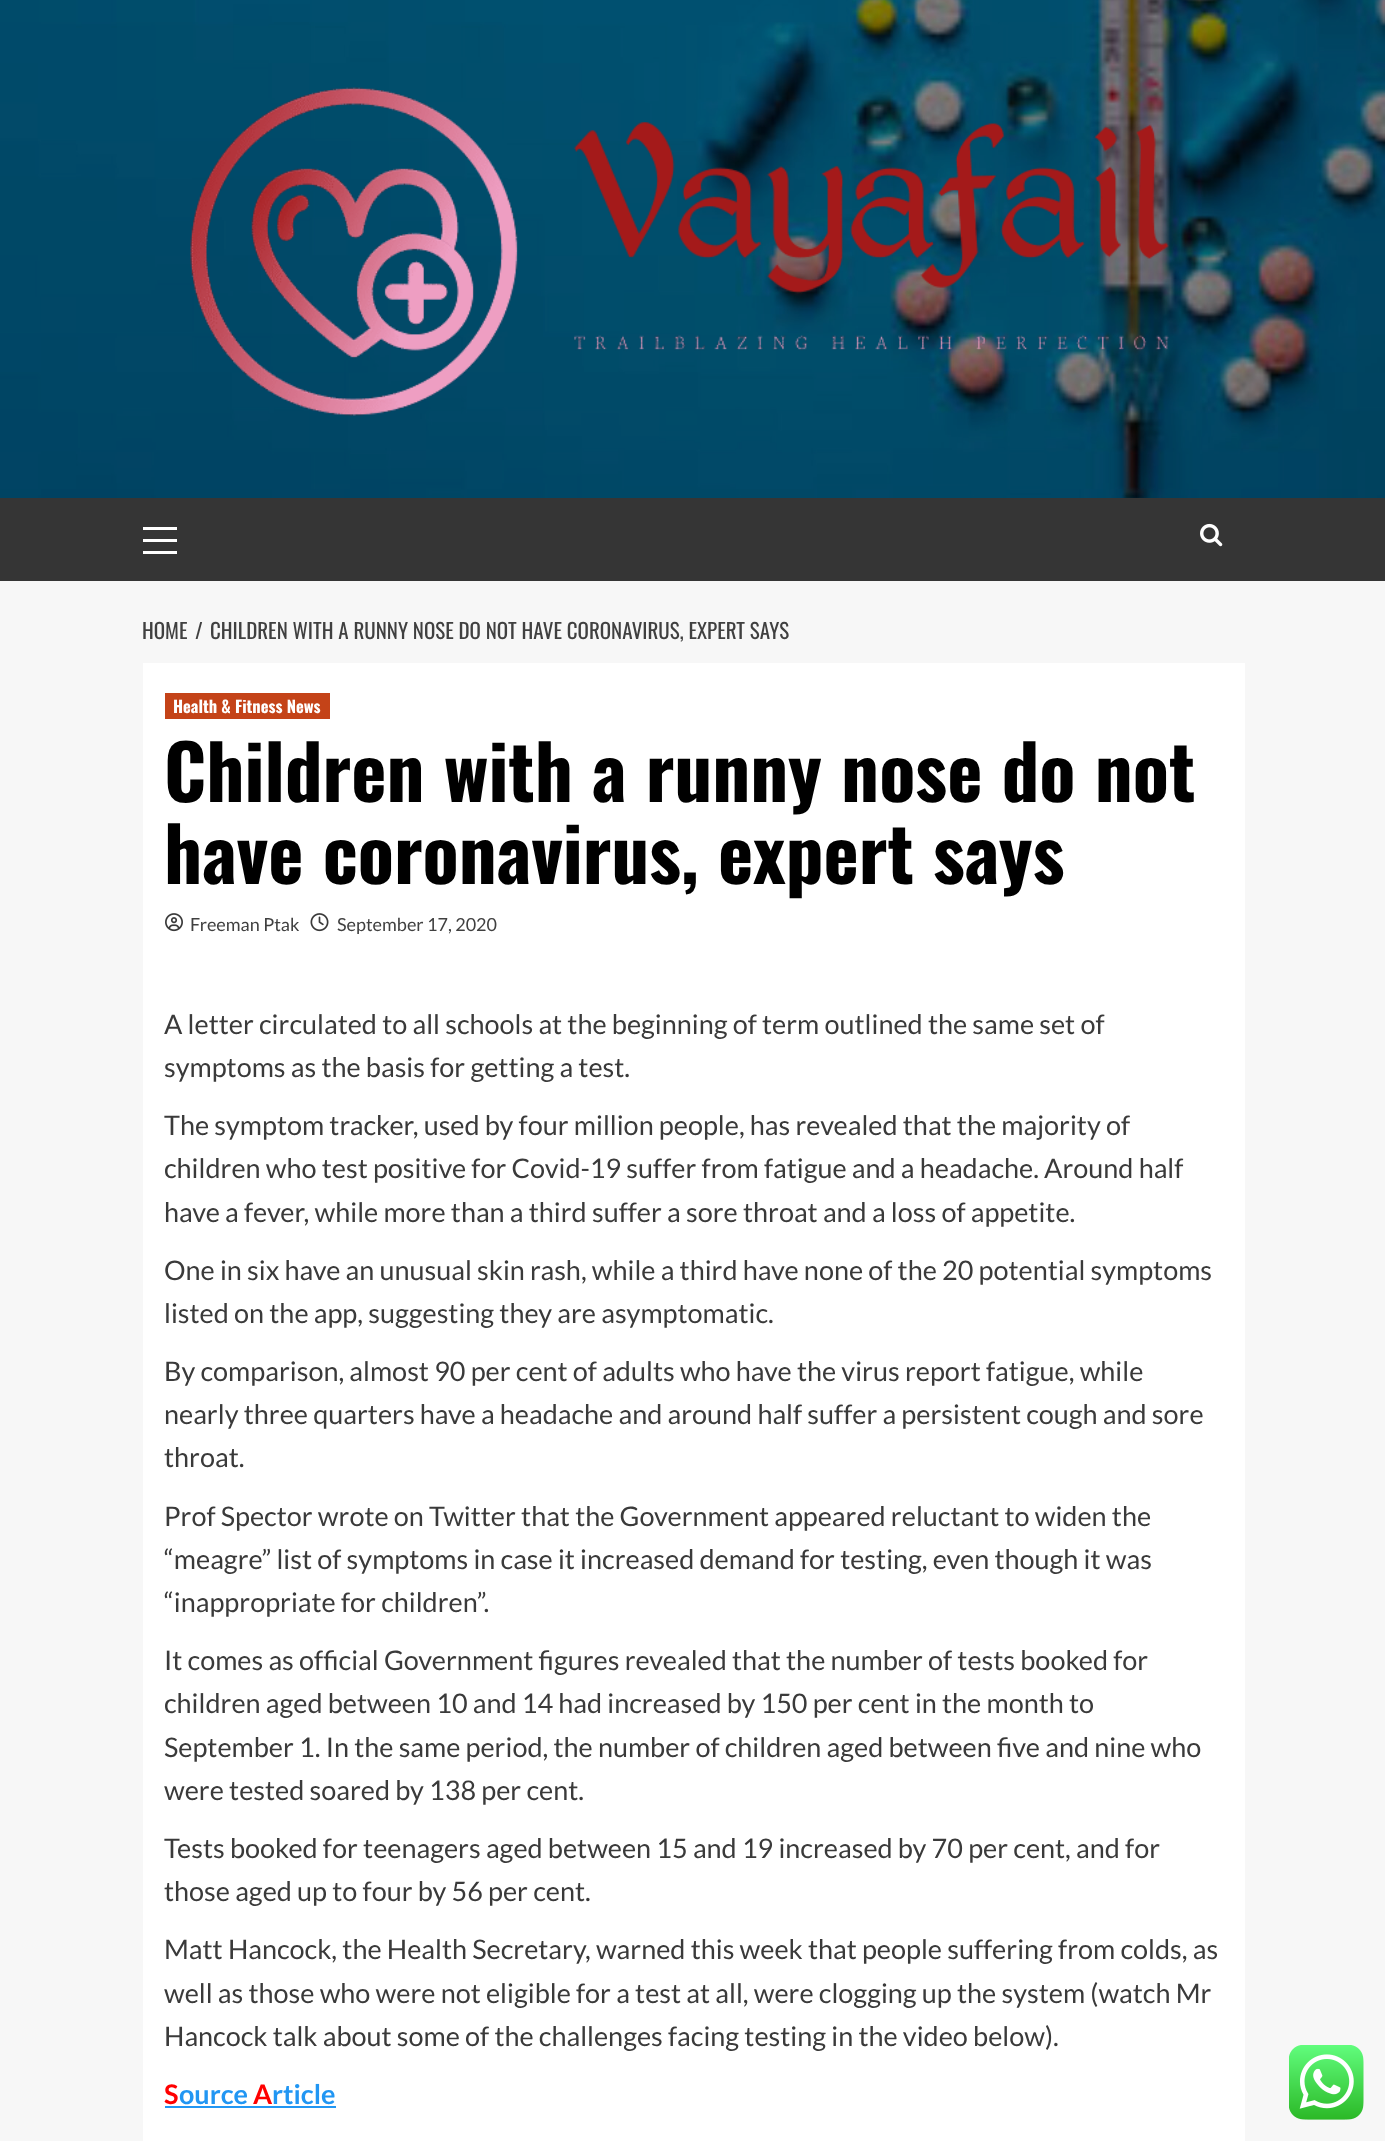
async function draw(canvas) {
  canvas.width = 1385
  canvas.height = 2141
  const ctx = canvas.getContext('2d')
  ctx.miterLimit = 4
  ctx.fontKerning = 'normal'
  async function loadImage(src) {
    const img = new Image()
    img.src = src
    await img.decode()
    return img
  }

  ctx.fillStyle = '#f7f7f7'
  ctx.fillRect(0, 0, 1385, 2141)
  ctx.drawImage(await loadImage('image0.png'), 0, 0, 1385, 498)
  ctx.drawImage(await loadImage('image1.png'), 190, 87, 979, 329)
  ctx.fillStyle = '#353535'
  ctx.fillRect(0, 498, 1385, 83)
  ctx.fillStyle = '#fff'
  ctx.fillRect(143, 539, 34, 3)
  ctx.fillRect(143, 527, 34, 3)
  ctx.fillRect(143, 551, 34, 3)
  ctx.drawImage(await loadImage('image2.png'), 1200, 523, 23, 24)
  ctx.font = '21px Oswald'
  ctx.fillStyle = '#404040'
  ctx.fillText('HOME', 142, 639)
  ctx.fillText('/', 195, 639)
  ctx.fillText('CHILDREN WITH A RUNNY NOSE DO NOT HAVE CORONAVIRUS, EXPERT SAYS', 210, 639)
  ctx.fillStyle = '#fff'
  ctx.fillRect(143, 663, 1102, 1478)
  ctx.fillStyle = '#c44318'
  ctx.fillRect(165, 693, 165, 26)
  ctx.font = 'bold 16.5px Oswald'
  ctx.fillStyle = '#fff'
  ctx.fillText('Health & Fitness News', 173, 713)
  ctx.font = 'bold 75px Oswald'
  ctx.fillStyle = '#000'
  ctx.fillText('Children with a runny nose do not', 164, 802)
  ctx.fillText('have coronavirus, expert says', 164, 884)
  ctx.drawImage(await loadImage('image3.png'), 165, 913, 18, 19)
  ctx.font = '18px Lato'
  ctx.fillStyle = '#404040'
  ctx.fillText('Freeman Ptak', 190, 931)
  ctx.drawImage(await loadImage('image4.png'), 310, 913, 19, 19)
  ctx.fillText('September 17, 2020', 337, 931)
  ctx.font = '27px Lato'
  ctx.fillStyle = '#3a3a3a'
  ctx.fillText('A letter circulated to all schools at the beginning of term outlined the same set of', 164, 1034)
  ctx.fillText('symptoms as the basis for getting a test.', 164, 1077)
  ctx.fillText('The symptom tracker, used by four million people, has revealed that the majority of', 164, 1135)
  ctx.fillText('children who test positive for Covid-19 suffer from fatigue and a headache. Around half', 164, 1178)
  ctx.fillText('have a fever, while more than a third suffer a sore throat and a loss of appetite.', 164, 1222)
  ctx.fillText('One in six have an unusual skin rash, while a third have none of the 20 potential symptoms', 164, 1280)
  ctx.fillText('listed on the app, suggesting they are asymptomatic.', 164, 1323)
  ctx.fillText('By comparison, almost 90 per cent of adults who have the virus report fatigue, while', 164, 1381)
  ctx.fillText('nearly three quarters have a headache and around half suffer a persistent cough and sore', 164, 1424)
  ctx.fillText('throat.', 164, 1467)
  ctx.fillText('Prof Spector wrote on Twitter that the Government appeared reluctant to widen the', 164, 1526)
  ctx.fillText('“meagre” list of symptoms in case it increased demand for testing, even though it was', 164, 1569)
  ctx.fillText('“inappropriate for children”.', 164, 1612)
  ctx.fillText('It comes as official Government figures revealed that the number of tests booked for', 164, 1670)
  ctx.fillText('children aged between 10 and 14 had increased by 150 per cent in the month to', 164, 1713)
  ctx.fillText('September 1. In the same period, the number of children aged between five and nine who', 164, 1757)
  ctx.fillText('were tested soared by 138 per cent.', 164, 1800)
  ctx.fillText('Tests booked for teenagers aged between 15 and 19 increased by 70 per cent, and for', 164, 1858)
  ctx.fillText('those aged up to four by 56 per cent.', 164, 1901)
  ctx.fillText('Matt Hancock, the Health Secretary, warned this week that people suffering from colds, as', 164, 1959)
  ctx.fillText('well as those who were not eligible for a test at all, were clogging up the system (watch Mr', 164, 2003)
  ctx.fillText('Hancock talk about some of the challenges facing testing in the video below).', 164, 2046)
  ctx.font = 'bold 27px Lato'
  ctx.fillStyle = '#f00'
  ctx.fillText('S', 164, 2104)
  ctx.fillStyle = '#2196f3'
  ctx.fillText('ource', 179, 2104)
  ctx.fillRect(165, 2106, 171, 2)
  ctx.fillStyle = '#f00'
  ctx.fillText('A', 253, 2104)
  ctx.fillStyle = '#2196f3'
  ctx.fillText('rticle', 272, 2104)
  ctx.drawImage(await loadImage('image5.png'), 1289, 2045, 75, 75)
}

draw(document.querySelector('canvas'))
